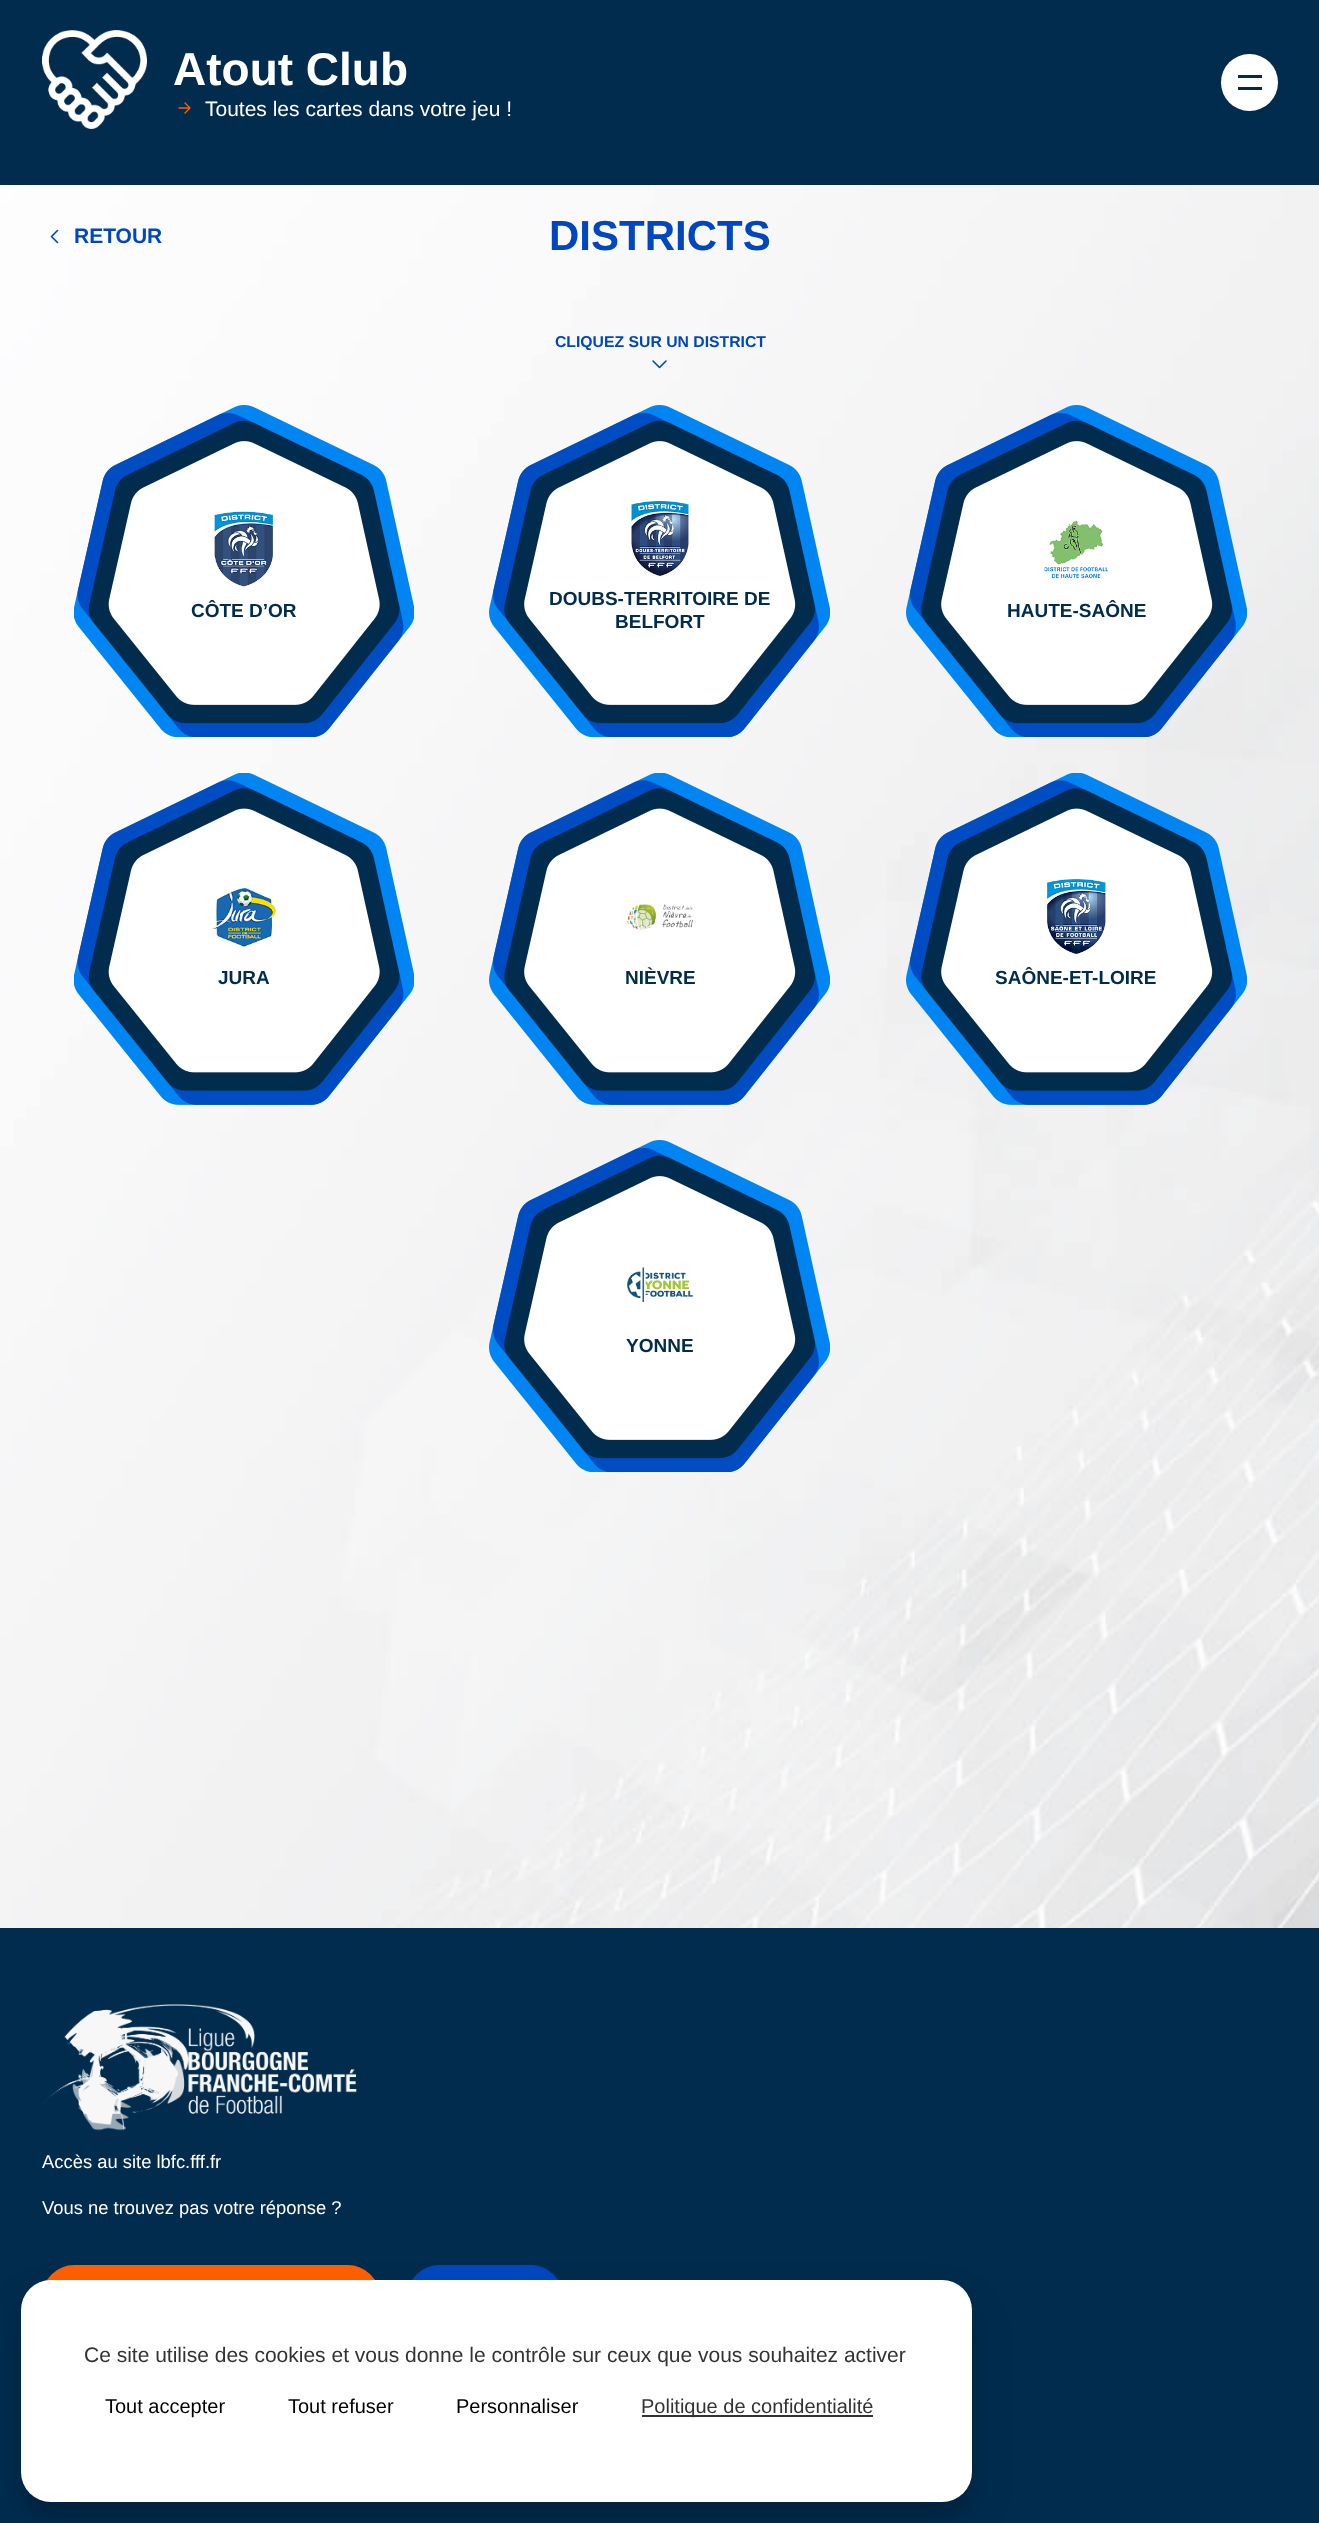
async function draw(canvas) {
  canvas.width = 1319
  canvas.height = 2523
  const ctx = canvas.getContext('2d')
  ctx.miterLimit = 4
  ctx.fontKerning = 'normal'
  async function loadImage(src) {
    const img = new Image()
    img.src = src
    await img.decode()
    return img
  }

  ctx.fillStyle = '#fff'
  ctx.fillRect(0, 0, 1319, 2523)
  ctx.drawImage(await loadImage('image0.png'), 0, 185, 1319, 1743)
  ctx.fillStyle = '#012c4e'
  ctx.fillRect(0, 0, 1319, 185)
  ctx.drawImage(await loadImage('image1.png'), 42, 30, 105, 99)
  ctx.font = 'bold 46px Liberation Sans'
  ctx.fillStyle = '#fff'
  ctx.fillText('Atout Club', 173, 85)
  ctx.beginPath()
  ctx.moveTo(179, 108)
  ctx.lineTo(190, 108)
  ctx.moveTo(190, 108)
  ctx.lineTo(185, 103)
  ctx.moveTo(190, 108)
  ctx.lineTo(185, 113)
  ctx.strokeStyle = '#ff5f00'
  ctx.lineWidth = 1.3
  ctx.lineCap = 'round'
  ctx.lineJoin = 'round'
  ctx.stroke()
  ctx.font = '21px Liberation Sans'
  ctx.fillText('Toutes les cartes dans votre jeu !', 205, 116)
  ctx.beginPath()
  ctx.arc(1249.5, 82.5, 28.5, 0, 2 * Math.PI)
  ctx.fill()
  ctx.fillStyle = '#012c4e'
  ctx.fillRect(1238, 75, 24, 3)
  ctx.fillRect(1238, 87, 24, 3)
  ctx.beginPath()
  ctx.moveTo(57.5, 230.5)
  ctx.lineTo(51.5, 236.5)
  ctx.lineTo(57.5, 242.5)
  ctx.strokeStyle = '#0047be'
  ctx.lineWidth = 1.6
  ctx.stroke()
  ctx.font = 'bold 21px Liberation Sans'
  ctx.fillStyle = '#0047be'
  ctx.fillText('RETOUR', 74, 243)
  ctx.font = 'bold 42px Liberation Sans'
  ctx.fillText('DISTRICTS', 549, 250)
  ctx.font = 'bold 15.75px Liberation Sans'
  ctx.fillText('CLIQUEZ SUR UN DISTRICT', 555, 347)
  ctx.beginPath()
  ctx.moveTo(653, 361)
  ctx.lineTo(659.5, 367.5)
  ctx.lineTo(666, 361)
  ctx.stroke()
  ctx.drawImage(await loadImage('image2.png'), 74, 405, 340, 332)
  ctx.drawImage(await loadImage('image3.png'), 214, 511, 59, 76)
  ctx.font = 'bold 19px Liberation Sans'
  ctx.fillStyle = '#012c4e'
  ctx.fillText('CÔTE D’OR', 191, 617)
  ctx.drawImage(await loadImage('image4.png'), 489, 405, 341, 332)
  ctx.drawImage(await loadImage('image5.png'), 631, 501, 58, 75)
  ctx.fillText('DOUBS-TERRITOIRE DE', 549, 605)
  ctx.fillText('BELFORT', 615, 628)
  ctx.drawImage(await loadImage('image6.png'), 906, 405, 341, 332)
  ctx.drawImage(await loadImage('image7.png'), 1044, 520, 65, 59)
  ctx.fillText('HAUTE-SAÔNE', 1007, 617)
  ctx.drawImage(await loadImage('image8.png'), 74, 773, 340, 332)
  ctx.drawImage(await loadImage('image9.png'), 212, 888, 64, 59)
  ctx.fillText('JURA', 218, 984)
  ctx.drawImage(await loadImage('image10.png'), 489, 773, 341, 332)
  ctx.drawImage(await loadImage('image11.png'), 627, 904, 66, 26)
  ctx.fillText('NIÈVRE', 625, 984)
  ctx.drawImage(await loadImage('image12.png'), 906, 773, 341, 332)
  ctx.drawImage(await loadImage('image13.png'), 1047, 879, 59, 75)
  ctx.fillText('SAÔNE-ET-LOIRE', 995, 984)
  ctx.drawImage(await loadImage('image14.png'), 489, 1140, 341, 332)
  ctx.drawImage(await loadImage('image15.png'), 627, 1267, 66, 35)
  ctx.fillText('YONNE', 626, 1352)
  ctx.fillRect(0, 1928, 1319, 595)
  ctx.drawImage(await loadImage('image16.png'), 42, 2004, 315, 127)
  ctx.font = '18.4px Liberation Sans'
  ctx.fillStyle = '#fff'
  ctx.fillText('Accès au site lbfc.fff.fr', 42, 2168)
  ctx.fillText('Vous ne trouvez pas votre réponse ?', 42, 2214)
  ctx.fillStyle = '#ff5f00'
  ctx.beginPath()
  ctx.roundRect(43, 2266, 336, 63, 31.5)
  ctx.fill()
  ctx.strokeStyle = '#ff5f00'
  ctx.lineWidth = 2
  ctx.lineJoin = 'miter'
  ctx.stroke()
  ctx.fillStyle = '#0047be'
  ctx.beginPath()
  ctx.roundRect(408, 2266, 154, 63, 31.5)
  ctx.fill()
  ctx.strokeStyle = '#0047be'
  ctx.stroke()
  ctx.fillStyle = '#0000001a'
  ctx.filter = 'blur(7.5px)'
  ctx.beginPath()
  ctx.roundRect(21, 2295, 951, 222, 30)
  ctx.fill()
  ctx.filter = 'none'
  ctx.filter = 'blur(21px)'
  ctx.beginPath()
  ctx.roundRect(21, 2301, 951, 222, 30)
  ctx.fill()
  ctx.filter = 'none'
  ctx.fillStyle = '#fff'
  ctx.beginPath()
  ctx.roundRect(21, 2280, 951, 222, 30)
  ctx.fill()
  ctx.font = '21px Liberation Sans'
  ctx.fillStyle = '#333'
  ctx.fillText('Ce site utilise des cookies et vous donne le contrôle sur ceux que vous souhaitez activer', 84, 2362)
  ctx.font = '20px Liberation Sans'
  ctx.fillStyle = '#000'
  ctx.fillText('Tout accepter', 105, 2413)
  ctx.fillText('Tout refuser', 288, 2413)
  ctx.fillText('Personnaliser', 456, 2413)
  ctx.fillStyle = '#333'
  ctx.fillRect(642, 2415, 231, 2)
  ctx.fillText('Politique de confidentialité', 641, 2413)
}

draw(document.querySelector('canvas'))
